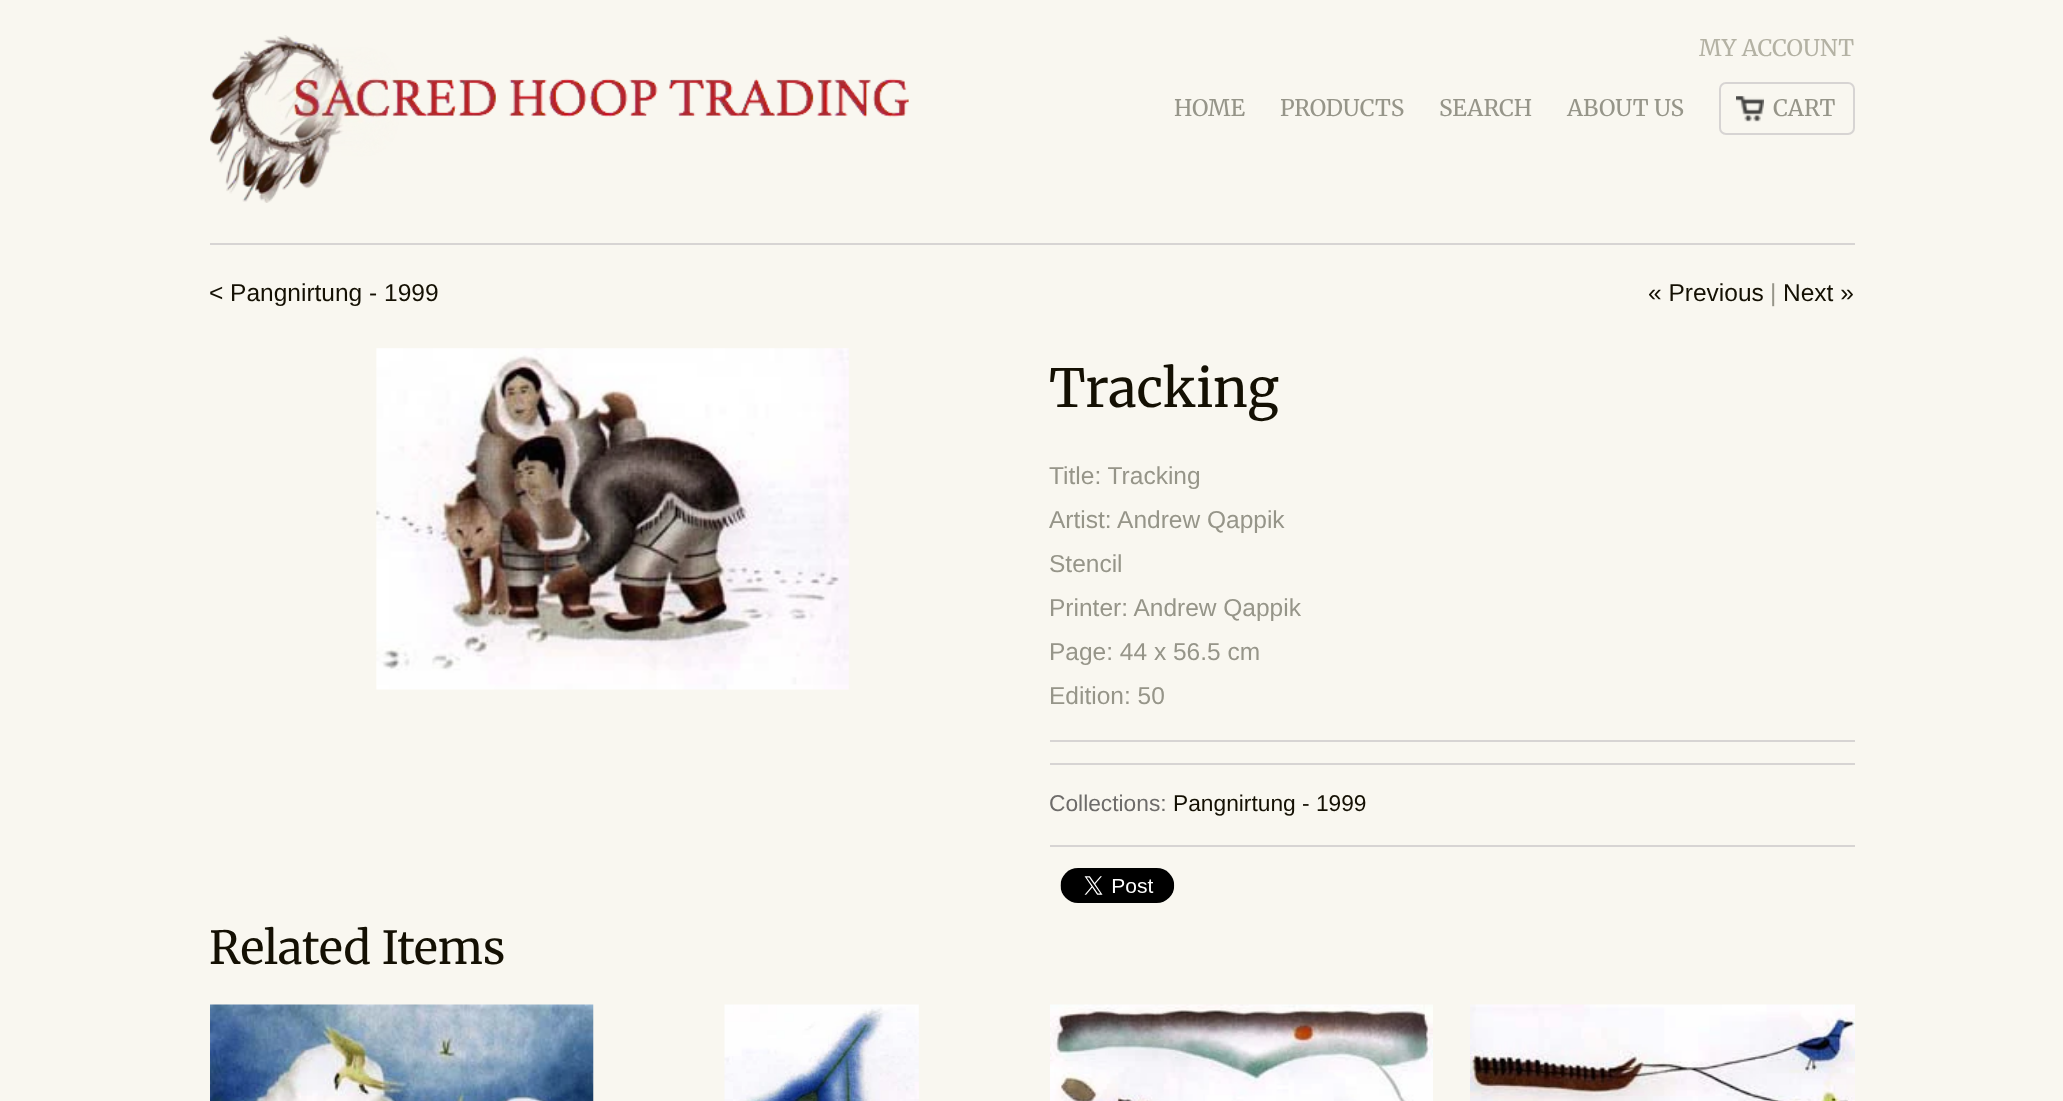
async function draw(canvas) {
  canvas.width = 2063
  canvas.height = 1101
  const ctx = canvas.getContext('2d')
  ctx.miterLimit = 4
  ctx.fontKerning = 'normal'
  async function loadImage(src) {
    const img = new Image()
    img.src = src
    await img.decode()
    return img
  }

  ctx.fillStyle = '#f9f7f0'
  ctx.fillRect(0, 0, 2063, 1101)
  ctx.fillStyle = '#d7d4d3'
  ctx.fillRect(210, 243, 1645, 2)
  ctx.drawImage(await loadImage('image0.png'), 210, 35, 699, 168)
  ctx.font = '22.75px Merriweather'
  ctx.fillStyle = '#b4b2a4'
  ctx.fillText('MY ACCOUNT', 1699, 56)
  ctx.fillStyle = '#969589'
  ctx.fillText('HOME', 1174, 116)
  ctx.fillText('PRODUCTS', 1280, 116)
  ctx.fillText('SEARCH', 1439, 116)
  ctx.fillText('ABOUT US', 1567, 116)
  ctx.drawImage(await loadImage('image1.png'), 1736, 96, 28, 26)
  ctx.beginPath()
  ctx.roundRect(1720, 83, 134, 51, 6)
  ctx.strokeStyle = '#d7d4d3'
  ctx.lineWidth = 2
  ctx.stroke()
  ctx.fillText('CART', 1773, 116)
  ctx.font = '24.5px Liberation Sans'
  ctx.fillStyle = '#141003'
  ctx.fillText('< Pangnirtung - 1999', 209, 301)
  ctx.fillText('« Previous', 1648, 301)
  ctx.fillStyle = '#969589'
  ctx.fillText('|', 1770, 301)
  ctx.fillStyle = '#141003'
  ctx.fillText('Next »', 1783, 301)
  ctx.drawImage(await loadImage('image2.png'), 376, 348, 473, 342)
  ctx.font = '52.5px Merriweather'
  ctx.fillText('Tracking', 1049, 407)
  ctx.font = '24.5px Liberation Sans'
  ctx.fillStyle = '#969589'
  ctx.fillText('Title: Tracking', 1049, 484)
  ctx.fillText('Artist: Andrew Qappik', 1049, 528)
  ctx.fillText('Stencil', 1049, 572)
  ctx.fillText('Printer: Andrew Qappik', 1049, 616)
  ctx.fillText('Page: 44 x 56.5 cm', 1049, 660)
  ctx.fillText('Edition: 50', 1049, 704)
  ctx.fillStyle = '#d7d4d3'
  ctx.fillRect(1050, 740, 805, 2)
  ctx.fillRect(1050, 763, 805, 2)
  ctx.font = '22.75px Liberation Sans'
  ctx.fillStyle = '#6e6c6a'
  ctx.fillText('Collections:', 1049, 811)
  ctx.fillStyle = '#141003'
  ctx.fillText('Pangnirtung - 1999', 1173, 811)
  ctx.fillStyle = '#d7d4d3'
  ctx.fillRect(1050, 845, 805, 2)
  ctx.drawImage(await loadImage('image3.png'), 1060, 868, 115, 35)
  ctx.font = '45.5px Merriweather'
  ctx.fillStyle = '#141003'
  ctx.fillText('Related Items', 209, 964)
  ctx.drawImage(await loadImage('image4.png'), 210, 1004, 384, 97)
  ctx.drawImage(await loadImage('image5.png'), 724, 1004, 195, 97)
  ctx.drawImage(await loadImage('image6.png'), 1050, 1004, 383, 97)
  ctx.drawImage(await loadImage('image7.png'), 1470, 1004, 385, 97)
}

draw(document.querySelector('canvas'))
